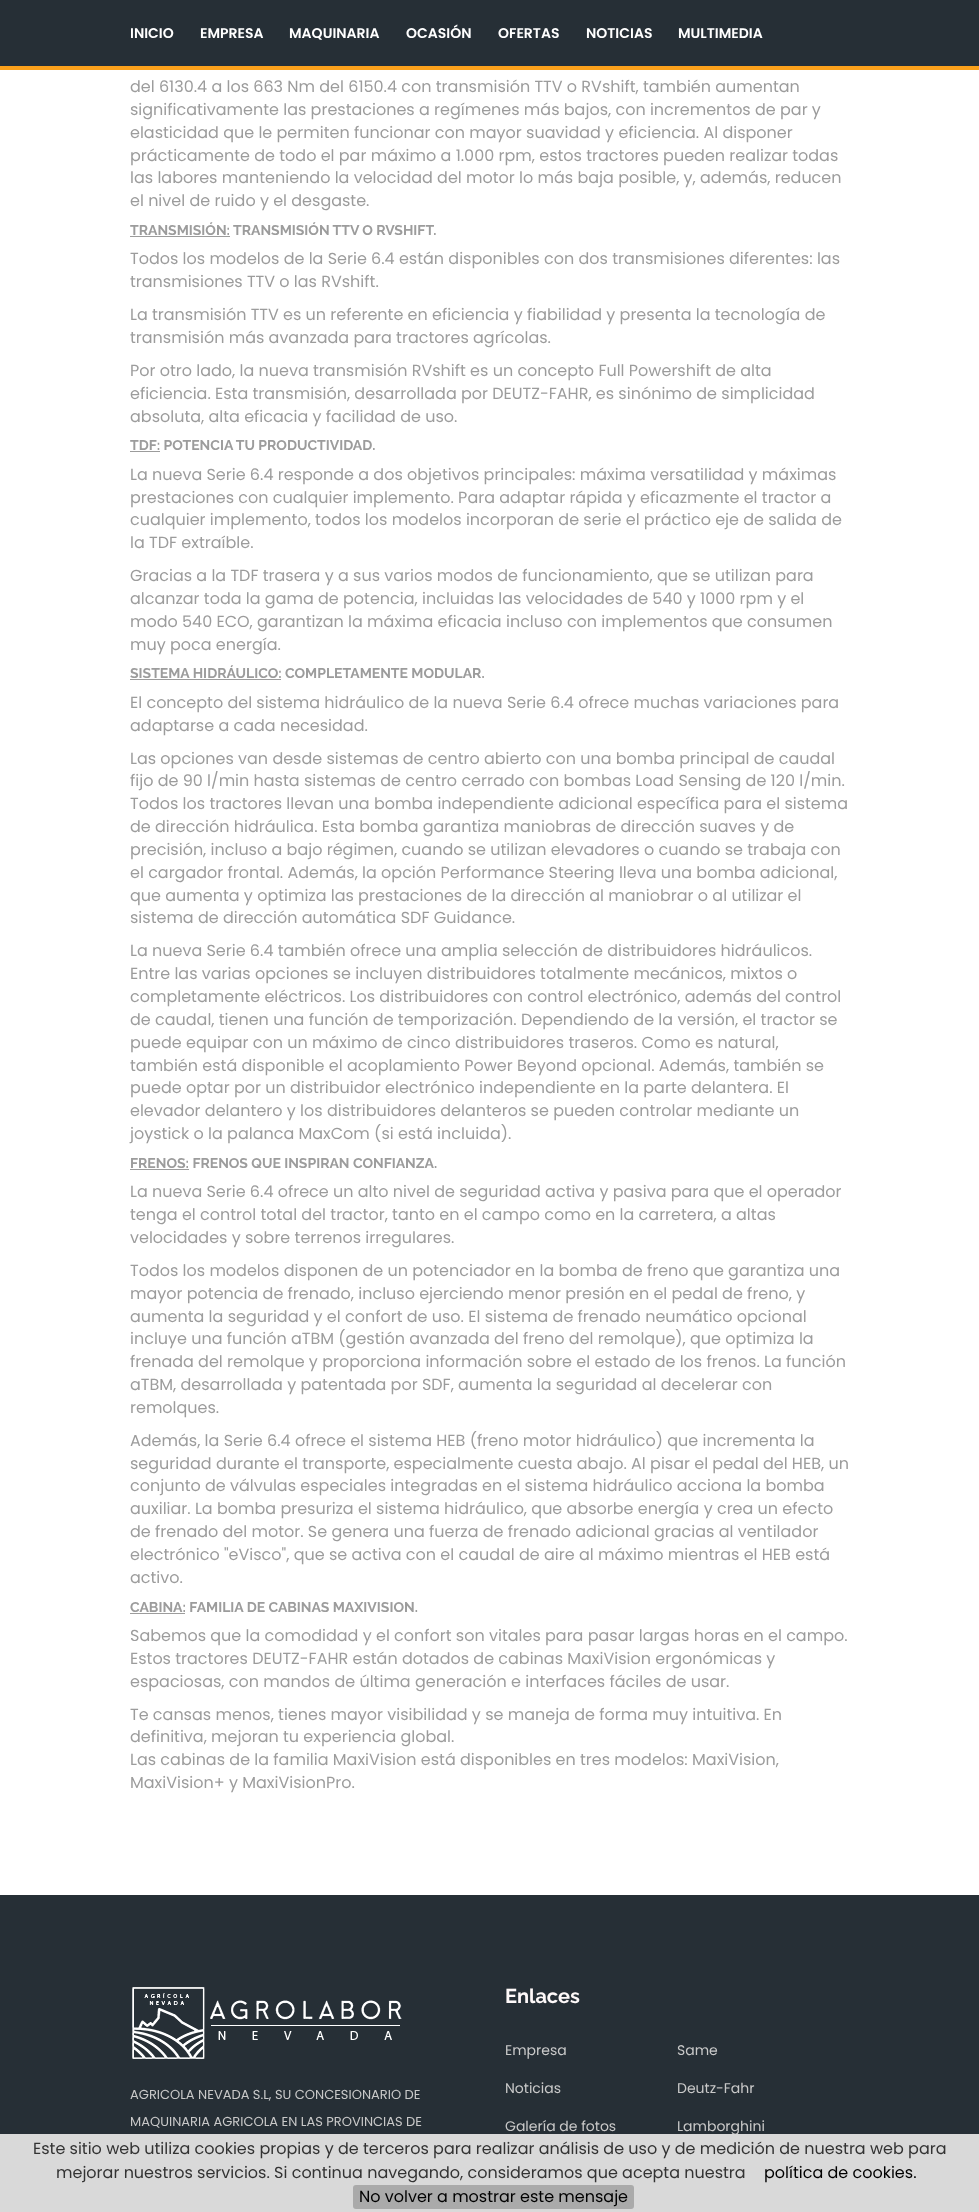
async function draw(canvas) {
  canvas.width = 979
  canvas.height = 2212
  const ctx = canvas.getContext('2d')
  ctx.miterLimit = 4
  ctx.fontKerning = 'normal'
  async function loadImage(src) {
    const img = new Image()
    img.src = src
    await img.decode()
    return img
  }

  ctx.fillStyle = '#fff'
  ctx.fillRect(0, 0, 979, 2212)
  ctx.fillStyle = '#262f36'
  ctx.fillRect(0, 0, 979, 66)
  ctx.fillStyle = '#fba11b'
  ctx.fillRect(0, 66, 979, 4)
  ctx.font = '600 14px Poppins'
  ctx.fillStyle = '#fff'
  ctx.fillText('INICIO', 130, 38)
  ctx.fillText('EMPRESA', 200, 38)
  ctx.fillText('MAQUINARIA', 289, 38)
  ctx.fillText('OCASIÓN', 406, 38)
  ctx.fillText('OFERTAS', 498, 38)
  ctx.fillText('NOTICIAS', 586, 38)
  ctx.fillText('MULTIMEDIA', 678, 38)
  ctx.font = '16px Poppins'
  ctx.fillStyle = '#9c9c9c'
  ctx.fillText('del 6130.4 a los 663 Nm del 6150.4 con transmisión TTV o RVshift, también aumentan', 130, 92)
  ctx.fillText('significativamente las prestaciones a regímenes más bajos, con incrementos de par y', 130, 115)
  ctx.fillText('elasticidad que le permiten funcionar con mayor suavidad y eficiencia. Al disponer', 130, 138)
  ctx.fillText('prácticamente de todo el par máximo a 1.000 rpm, estos tractores pueden realizar todas', 130, 161)
  ctx.fillText('las labores manteniendo la velocidad del motor lo más baja posible, y, además, reducen', 130, 183)
  ctx.fillText('el nivel de ruido y el desgaste.', 130, 206)
  ctx.font = 'bold 14px Raleway'
  ctx.fillText('TRANSMISIÓN:', 130, 235)
  ctx.fillRect(130, 236, 100, 1)
  ctx.fillText('TRANSMISIÓN TTV O RVSHIFT.', 233, 235)
  ctx.font = '16px Poppins'
  ctx.fillText('Todos los modelos de la Serie 6.4 están disponibles con dos transmisiones diferentes: las', 130, 264)
  ctx.fillText('transmisiones TTV o las RVshift.', 130, 287)
  ctx.fillText('La transmisión TTV es un referente en eficiencia y fiabilidad y presenta la tecnología de', 130, 320)
  ctx.fillText('transmisión más avanzada para tractores agrícolas.', 130, 343)
  ctx.fillText('Por otro lado, la nueva transmisión RVshift es un concepto Full Powershift de alta', 130, 376)
  ctx.fillText('eficiencia. Esta transmisión, desarrollada por DEUTZ-FAHR, es sinónimo de simplicidad', 130, 399)
  ctx.fillText('absoluta, alta eficacia y facilidad de uso.', 130, 422)
  ctx.font = 'bold 14px Raleway'
  ctx.fillText('TDF: POTENCIA TU PRODUCTIVIDAD.', 130, 450)
  ctx.fillRect(130, 451, 30, 1)
  ctx.font = '16px Poppins'
  ctx.fillText('La nueva Serie 6.4 responde a dos objetivos principales: máxima versatilidad y máximas', 130, 480)
  ctx.fillText('prestaciones con cualquier implemento. Para adaptar rápida y eficazmente el tractor a', 130, 503)
  ctx.fillText('cualquier implemento, todos los modelos incorporan de serie el práctico eje de salida de', 130, 525)
  ctx.fillText('la TDF extraíble.', 130, 548)
  ctx.fillText('Gracias a la TDF trasera y a sus varios modos de funcionamiento, que se utilizan para', 130, 581)
  ctx.fillText('alcanzar toda la gama de potencia, incluidas las velocidades de 540 y 1000 rpm y el', 130, 604)
  ctx.fillText('modo 540 ECO, garantizan la máxima eficacia incluso con implementos que consumen', 130, 627)
  ctx.fillText('muy poca energía.', 130, 650)
  ctx.font = 'bold 14px Raleway'
  ctx.fillText('SISTEMA HIDRÁULICO: COMPLETAMENTE MODULAR.', 130, 678)
  ctx.fillRect(130, 679, 151, 1)
  ctx.font = '16px Poppins'
  ctx.fillText('El concepto del sistema hidráulico de la nueva Serie 6.4 ofrece muchas variaciones para', 130, 708)
  ctx.fillText('adaptarse a cada necesidad.', 130, 731)
  ctx.fillText('Las opciones van desde sistemas de centro abierto con una bomba principal de caudal', 130, 764)
  ctx.fillText('fijo de 90 l/min hasta sistemas de centro cerrado con bombas Load Sensing de 120 l/min.', 130, 786)
  ctx.fillText('Todos los tractores llevan una bomba independiente adicional específica para el sistema', 130, 809)
  ctx.fillText('de dirección hidráulica. Esta bomba garantiza maniobras de dirección suaves y de', 130, 832)
  ctx.fillText('precisión, incluso a bajo régimen, cuando se utilizan elevadores o cuando se trabaja con', 130, 855)
  ctx.fillText('el cargador frontal. Además, la opción Performance Steering lleva una bomba adicional,', 130, 878)
  ctx.fillText('que aumenta y optimiza las prestaciones de la dirección al maniobrar o al utilizar el', 130, 901)
  ctx.fillText('sistema de dirección automática SDF Guidance.', 130, 923)
  ctx.fillText('La nueva Serie 6.4 también ofrece una amplia selección de distribuidores hidráulicos.', 130, 956)
  ctx.fillText('Entre las varias opciones se incluyen distribuidores totalmente mecánicos, mixtos o', 130, 979)
  ctx.fillText('completamente eléctricos. Los distribuidores con control electrónico, además del control', 130, 1002)
  ctx.fillText('de caudal, tienen una función de temporización. Dependiendo de la versión, el tractor se', 130, 1025)
  ctx.fillText('puede equipar con un máximo de cinco distribuidores traseros. Como es natural,', 130, 1048)
  ctx.fillText('también está disponible el acoplamiento Power Beyond opcional. Además, también se', 130, 1071)
  ctx.fillText('puede optar por un distribuidor electrónico independiente en la parte delantera. El', 130, 1093)
  ctx.fillText('elevador delantero y los distribuidores delanteros se pueden controlar mediante un', 130, 1116)
  ctx.fillText('joystick o la palanca MaxCom (si está incluida).', 130, 1139)
  ctx.font = 'bold 14px Raleway'
  ctx.fillText('FRENOS: FRENOS QUE INSPIRAN CONFIANZA.', 130, 1168)
  ctx.fillRect(130, 1169, 59, 1)
  ctx.font = '16px Poppins'
  ctx.fillText('La nueva Serie 6.4 ofrece un alto nivel de seguridad activa y pasiva para que el operador', 130, 1197)
  ctx.fillText('tenga el control total del tractor, tanto en el campo como en la carretera, a altas', 130, 1220)
  ctx.fillText('velocidades y sobre terrenos irregulares.', 130, 1243)
  ctx.fillText('Todos los modelos disponen de un potenciador en la bomba de freno que garantiza una', 130, 1276)
  ctx.fillText('mayor potencia de frenado, incluso ejerciendo menor presión en el pedal de freno, y', 130, 1299)
  ctx.fillText('aumenta la seguridad y el confort de uso. El sistema de frenado neumático opcional', 130, 1322)
  ctx.fillText('incluye una función aTBM (gestión avanzada del freno del remolque), que optimiza la', 130, 1344)
  ctx.fillText('frenada del remolque y proporciona información sobre el estado de los frenos. La función', 130, 1367)
  ctx.fillText('aTBM, desarrollada y patentada por SDF, aumenta la seguridad al decelerar con', 130, 1390)
  ctx.fillText('remolques.', 130, 1413)
  ctx.fillText('Además, la Serie 6.4 ofrece el sistema HEB (freno motor hidráulico) que incrementa la', 130, 1446)
  ctx.fillText('seguridad durante el transporte, especialmente cuesta abajo. Al pisar el pedal del HEB, un', 130, 1469)
  ctx.fillText('conjunto de válvulas especiales integradas en el sistema hidráulico acciona la bomba', 130, 1491)
  ctx.fillText('auxiliar. La bomba presuriza el sistema hidráulico, que absorbe energía y crea un efecto', 130, 1514)
  ctx.fillText('de frenado del motor. Se genera una fuerza de frenado adicional gracias al ventilador', 130, 1537)
  ctx.fillText('electrónico "eVisco", que se activa con el caudal de aire al máximo mientras el HEB está', 130, 1560)
  ctx.fillText('activo.', 130, 1583)
  ctx.font = 'bold 14px Raleway'
  ctx.fillText('CABINA: FAMILIA DE CABINAS MAXIVISION.', 130, 1612)
  ctx.fillRect(130, 1613, 55, 1)
  ctx.font = '16px Poppins'
  ctx.fillText('Sabemos que la comodidad y el confort son vitales para pasar largas horas en el campo.', 130, 1641)
  ctx.fillText('Estos tractores DEUTZ-FAHR están dotados de cabinas MaxiVision ergonómicas y', 130, 1664)
  ctx.fillText('espaciosas, con mandos de última generación e interfaces fáciles de usar.', 130, 1687)
  ctx.fillText('Te cansas menos, tienes mayor visibilidad y se maneja de forma muy intuitiva. En', 130, 1720)
  ctx.fillText('definitiva, mejoran tu experiencia global.', 130, 1742)
  ctx.fillText('Las cabinas de la familia MaxiVision está disponibles en tres modelos: MaxiVision,', 130, 1765)
  ctx.fillText('MaxiVision+ y MaxiVisionPro.', 130, 1788)
  ctx.fillStyle = '#262f36'
  ctx.fillRect(0, 1895, 979, 239)
  ctx.drawImage(await loadImage('image0.png'), 132, 1987, 270, 72)
  ctx.font = '13px Poppins'
  ctx.fillStyle = '#c9c9c9'
  ctx.fillText('AGRICOLA NEVADA S.L, SU CONCESIONARIO DE', 130, 2099)
  ctx.fillText('MAQUINARIA AGRICOLA EN LAS PROVINCIAS DE', 130, 2126)
  ctx.font = 'bold 20px Raleway'
  ctx.fillStyle = '#fef9f9'
  ctx.fillText('Enlaces', 505, 2003)
  ctx.font = '14px Poppins'
  ctx.fillStyle = '#c9c9c9'
  ctx.fillText('Empresa', 505, 2055)
  ctx.fillText('Noticias', 505, 2093)
  ctx.fillText('Galería de fotos', 505, 2131)
  ctx.fillText('Same', 677, 2055)
  ctx.fillText('Deutz-Fahr', 677, 2093)
  ctx.fillText('Lamborghini', 677, 2131)
  ctx.fillStyle = '#d9d9d9'
  ctx.fillRect(0, 2134, 979, 78)
  ctx.font = '16px Poppins'
  ctx.fillStyle = '#333'
  ctx.fillText('Este sitio web utiliza cookies propias y de terceros para realizar análisis de uso y de medición de nuestra web para', 33, 2154)
  ctx.fillText('mejorar nuestros servicios. Si continua navegando, consideramos que acepta nuestra', 56, 2178)
  ctx.fillStyle = '#000'
  ctx.fillText('política de cookies.', 764, 2178)
  ctx.fillStyle = '#aaa'
  ctx.beginPath()
  ctx.roundRect(353, 2185, 281, 24, 3)
  ctx.fill()
  ctx.fillStyle = '#000'
  ctx.fillText('No volver a mostrar este mensaje', 359, 2202)
}

draw(document.querySelector('canvas'))
